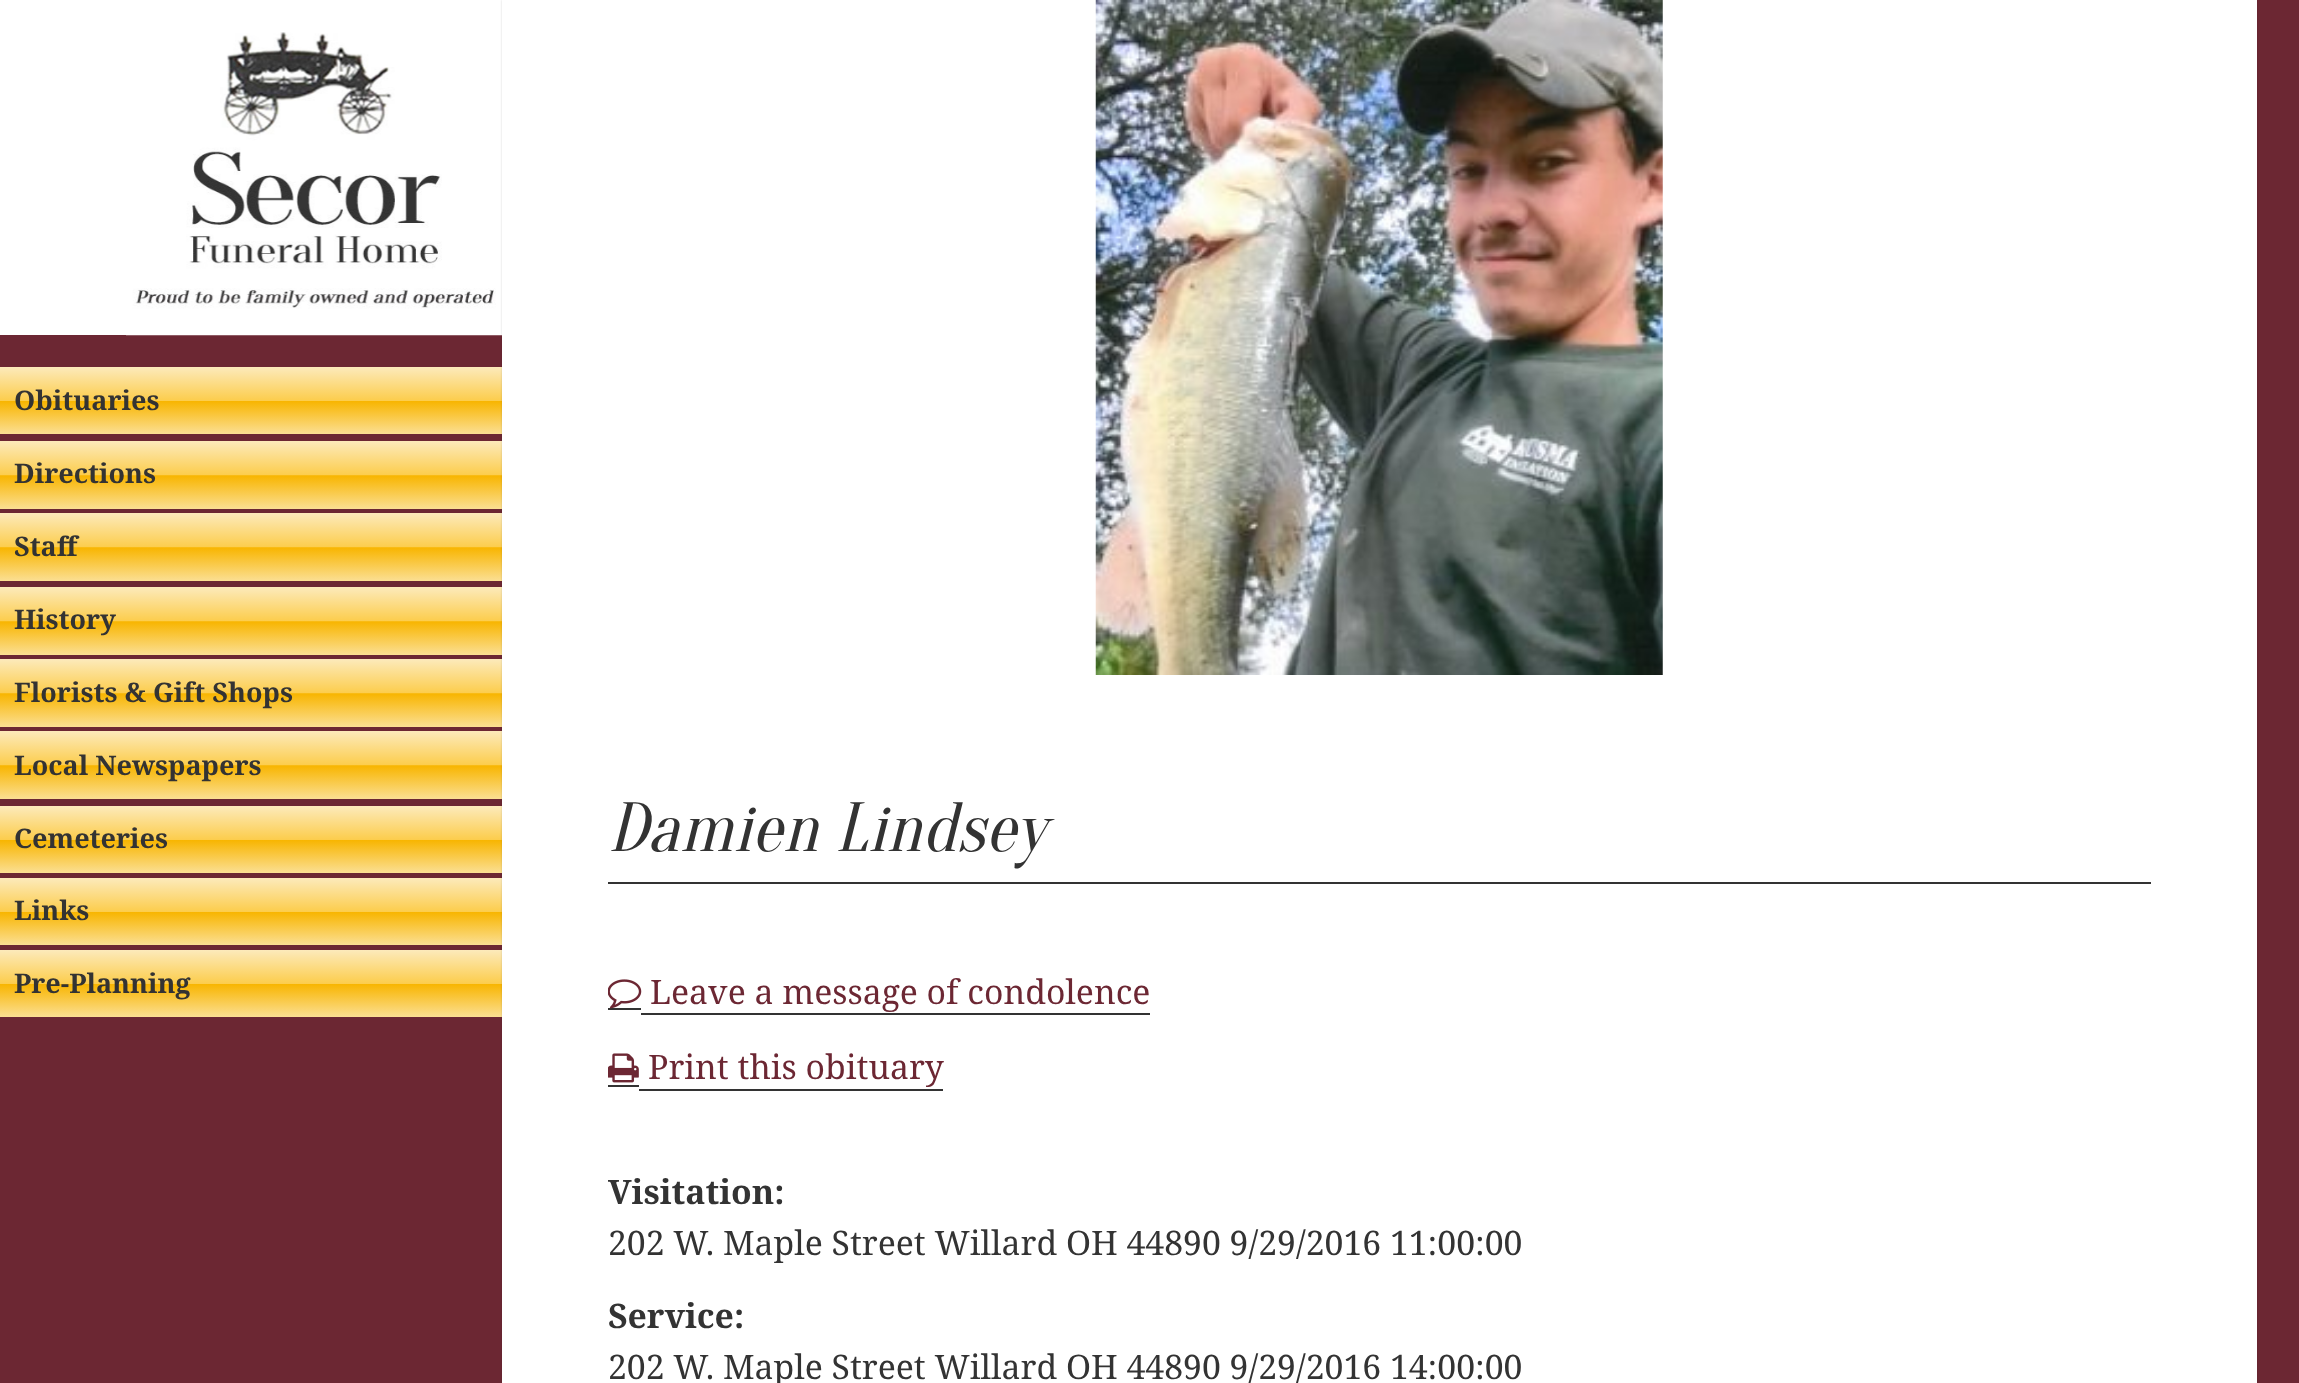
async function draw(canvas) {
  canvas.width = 2299
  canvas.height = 1383
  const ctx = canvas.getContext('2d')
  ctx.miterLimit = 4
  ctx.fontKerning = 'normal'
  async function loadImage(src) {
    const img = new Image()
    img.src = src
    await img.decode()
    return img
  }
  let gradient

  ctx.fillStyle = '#6c2733'
  ctx.fillRect(0, 0, 2299, 1383)
  ctx.fillStyle = '#fff'
  ctx.fillRect(0, 0, 502, 335)
  ctx.drawImage(await loadImage('image0.png'), 126, 32, 376, 304)
  gradient = ctx.createLinearGradient(315, 367, 315, 434)
  gradient.addColorStop(0, '#fceabb')
  gradient.addColorStop(0.5, '#fccd4d')
  gradient.addColorStop(0.51, '#f8b500')
  gradient.addColorStop(1, '#fbdf93')
  ctx.fillStyle = gradient
  ctx.fillRect(0, 367, 502, 67)
  ctx.font = 'bold 27px Noto Serif'
  ctx.fillStyle = '#333'
  ctx.fillText('Obituaries', 14, 410)
  gradient = ctx.createLinearGradient(315, 441, 315, 509)
  gradient.addColorStop(0, '#fceabb')
  gradient.addColorStop(0.5, '#fccd4d')
  gradient.addColorStop(0.51, '#f8b500')
  gradient.addColorStop(1, '#fbdf93')
  ctx.fillStyle = gradient
  ctx.fillRect(0, 441, 502, 68)
  ctx.fillStyle = '#333'
  ctx.fillText('Directions', 14, 483)
  gradient = ctx.createLinearGradient(315, 513, 315, 581)
  gradient.addColorStop(0, '#fceabb')
  gradient.addColorStop(0.5, '#fccd4d')
  gradient.addColorStop(0.51, '#f8b500')
  gradient.addColorStop(1, '#fbdf93')
  ctx.fillStyle = gradient
  ctx.fillRect(0, 513, 502, 68)
  ctx.fillStyle = '#333'
  ctx.fillText('Staff', 14, 556)
  gradient = ctx.createLinearGradient(315, 587, 315, 655)
  gradient.addColorStop(0, '#fceabb')
  gradient.addColorStop(0.5, '#fccd4d')
  gradient.addColorStop(0.51, '#f8b500')
  gradient.addColorStop(1, '#fbdf93')
  ctx.fillStyle = gradient
  ctx.fillRect(0, 587, 502, 68)
  ctx.fillStyle = '#333'
  ctx.fillText('History', 14, 629)
  gradient = ctx.createLinearGradient(315, 659, 315, 727)
  gradient.addColorStop(0, '#fceabb')
  gradient.addColorStop(0.5, '#fccd4d')
  gradient.addColorStop(0.51, '#f8b500')
  gradient.addColorStop(1, '#fbdf93')
  ctx.fillStyle = gradient
  ctx.fillRect(0, 659, 502, 68)
  ctx.fillStyle = '#333'
  ctx.fillText('Florists & Gift Shops', 14, 702)
  gradient = ctx.createLinearGradient(315, 731, 315, 799)
  gradient.addColorStop(0, '#fceabb')
  gradient.addColorStop(0.5, '#fccd4d')
  gradient.addColorStop(0.51, '#f8b500')
  gradient.addColorStop(1, '#fbdf93')
  ctx.fillStyle = gradient
  ctx.fillRect(0, 731, 502, 68)
  ctx.fillStyle = '#333'
  ctx.fillText('Local Newspapers', 14, 775)
  gradient = ctx.createLinearGradient(315, 806, 315, 873)
  gradient.addColorStop(0, '#fceabb')
  gradient.addColorStop(0.5, '#fccd4d')
  gradient.addColorStop(0.51, '#f8b500')
  gradient.addColorStop(1, '#fbdf93')
  ctx.fillStyle = gradient
  ctx.fillRect(0, 806, 502, 67)
  ctx.fillStyle = '#333'
  ctx.fillText('Cemeteries', 14, 848)
  gradient = ctx.createLinearGradient(315, 878, 315, 945)
  gradient.addColorStop(0, '#fceabb')
  gradient.addColorStop(0.5, '#fccd4d')
  gradient.addColorStop(0.51, '#f8b500')
  gradient.addColorStop(1, '#fbdf93')
  ctx.fillStyle = gradient
  ctx.fillRect(0, 878, 502, 67)
  ctx.fillStyle = '#333'
  ctx.fillText('Links', 14, 920)
  gradient = ctx.createLinearGradient(315, 950, 315, 1017)
  gradient.addColorStop(0, '#fceabb')
  gradient.addColorStop(0.5, '#fccd4d')
  gradient.addColorStop(0.51, '#f8b500')
  gradient.addColorStop(1, '#fbdf93')
  ctx.fillStyle = gradient
  ctx.fillRect(0, 950, 502, 67)
  ctx.fillStyle = '#333'
  ctx.fillText('Pre-Planning', 14, 993)
  ctx.fillStyle = '#00000026'
  ctx.filter = 'blur(1px)'
  ctx.beginPath()
  ctx.rect(502, 0, 1755, 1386)
  ctx.fill()
  ctx.filter = 'none'
  ctx.fillStyle = '#fff'
  ctx.fillRect(502, 0, 1755, 1383)
  ctx.drawImage(await loadImage('image1.png'), 1095, 0, 568, 675)
  ctx.fillStyle = '#333'
  ctx.fillRect(608, 882, 1543, 2)
  ctx.font = 'italic 69.75px Oranienbaum'
  ctx.fillText('Damien Lindsey', 608, 851)
  ctx.fillRect(608, 1008, 33, 2)
  ctx.fillRect(641, 1013, 509, 2)
  ctx.drawImage(await loadImage('image2.png'), 608, 979, 34, 30)
  ctx.font = '33.75px Noto Serif'
  ctx.fillStyle = '#6c2733'
  ctx.fillText('Leave a message of condolence', 650, 1004)
  ctx.fillStyle = '#333'
  ctx.fillRect(608, 1085, 31, 2)
  ctx.fillRect(639, 1089, 304, 2)
  ctx.drawImage(await loadImage('image3.png'), 608, 1053, 31, 30)
  ctx.fillStyle = '#6c2733'
  ctx.fillText('Print this obituary', 648, 1079)
  ctx.font = 'bold 33.75px Noto Serif'
  ctx.fillStyle = '#333'
  ctx.fillText('Visitation:', 608, 1204)
  ctx.font = '33.75px Noto Serif'
  ctx.fillText('202 W. Maple Street Willard OH 44890 9/29/2016 11:00:00', 608, 1255)
  ctx.font = 'bold 33.75px Noto Serif'
  ctx.fillText('Service:', 608, 1328)
  ctx.font = '33.75px Noto Serif'
  ctx.fillText('202 W. Maple Street Willard OH 44890 9/29/2016 14:00:00', 608, 1379)
}

draw(document.querySelector('canvas'))
